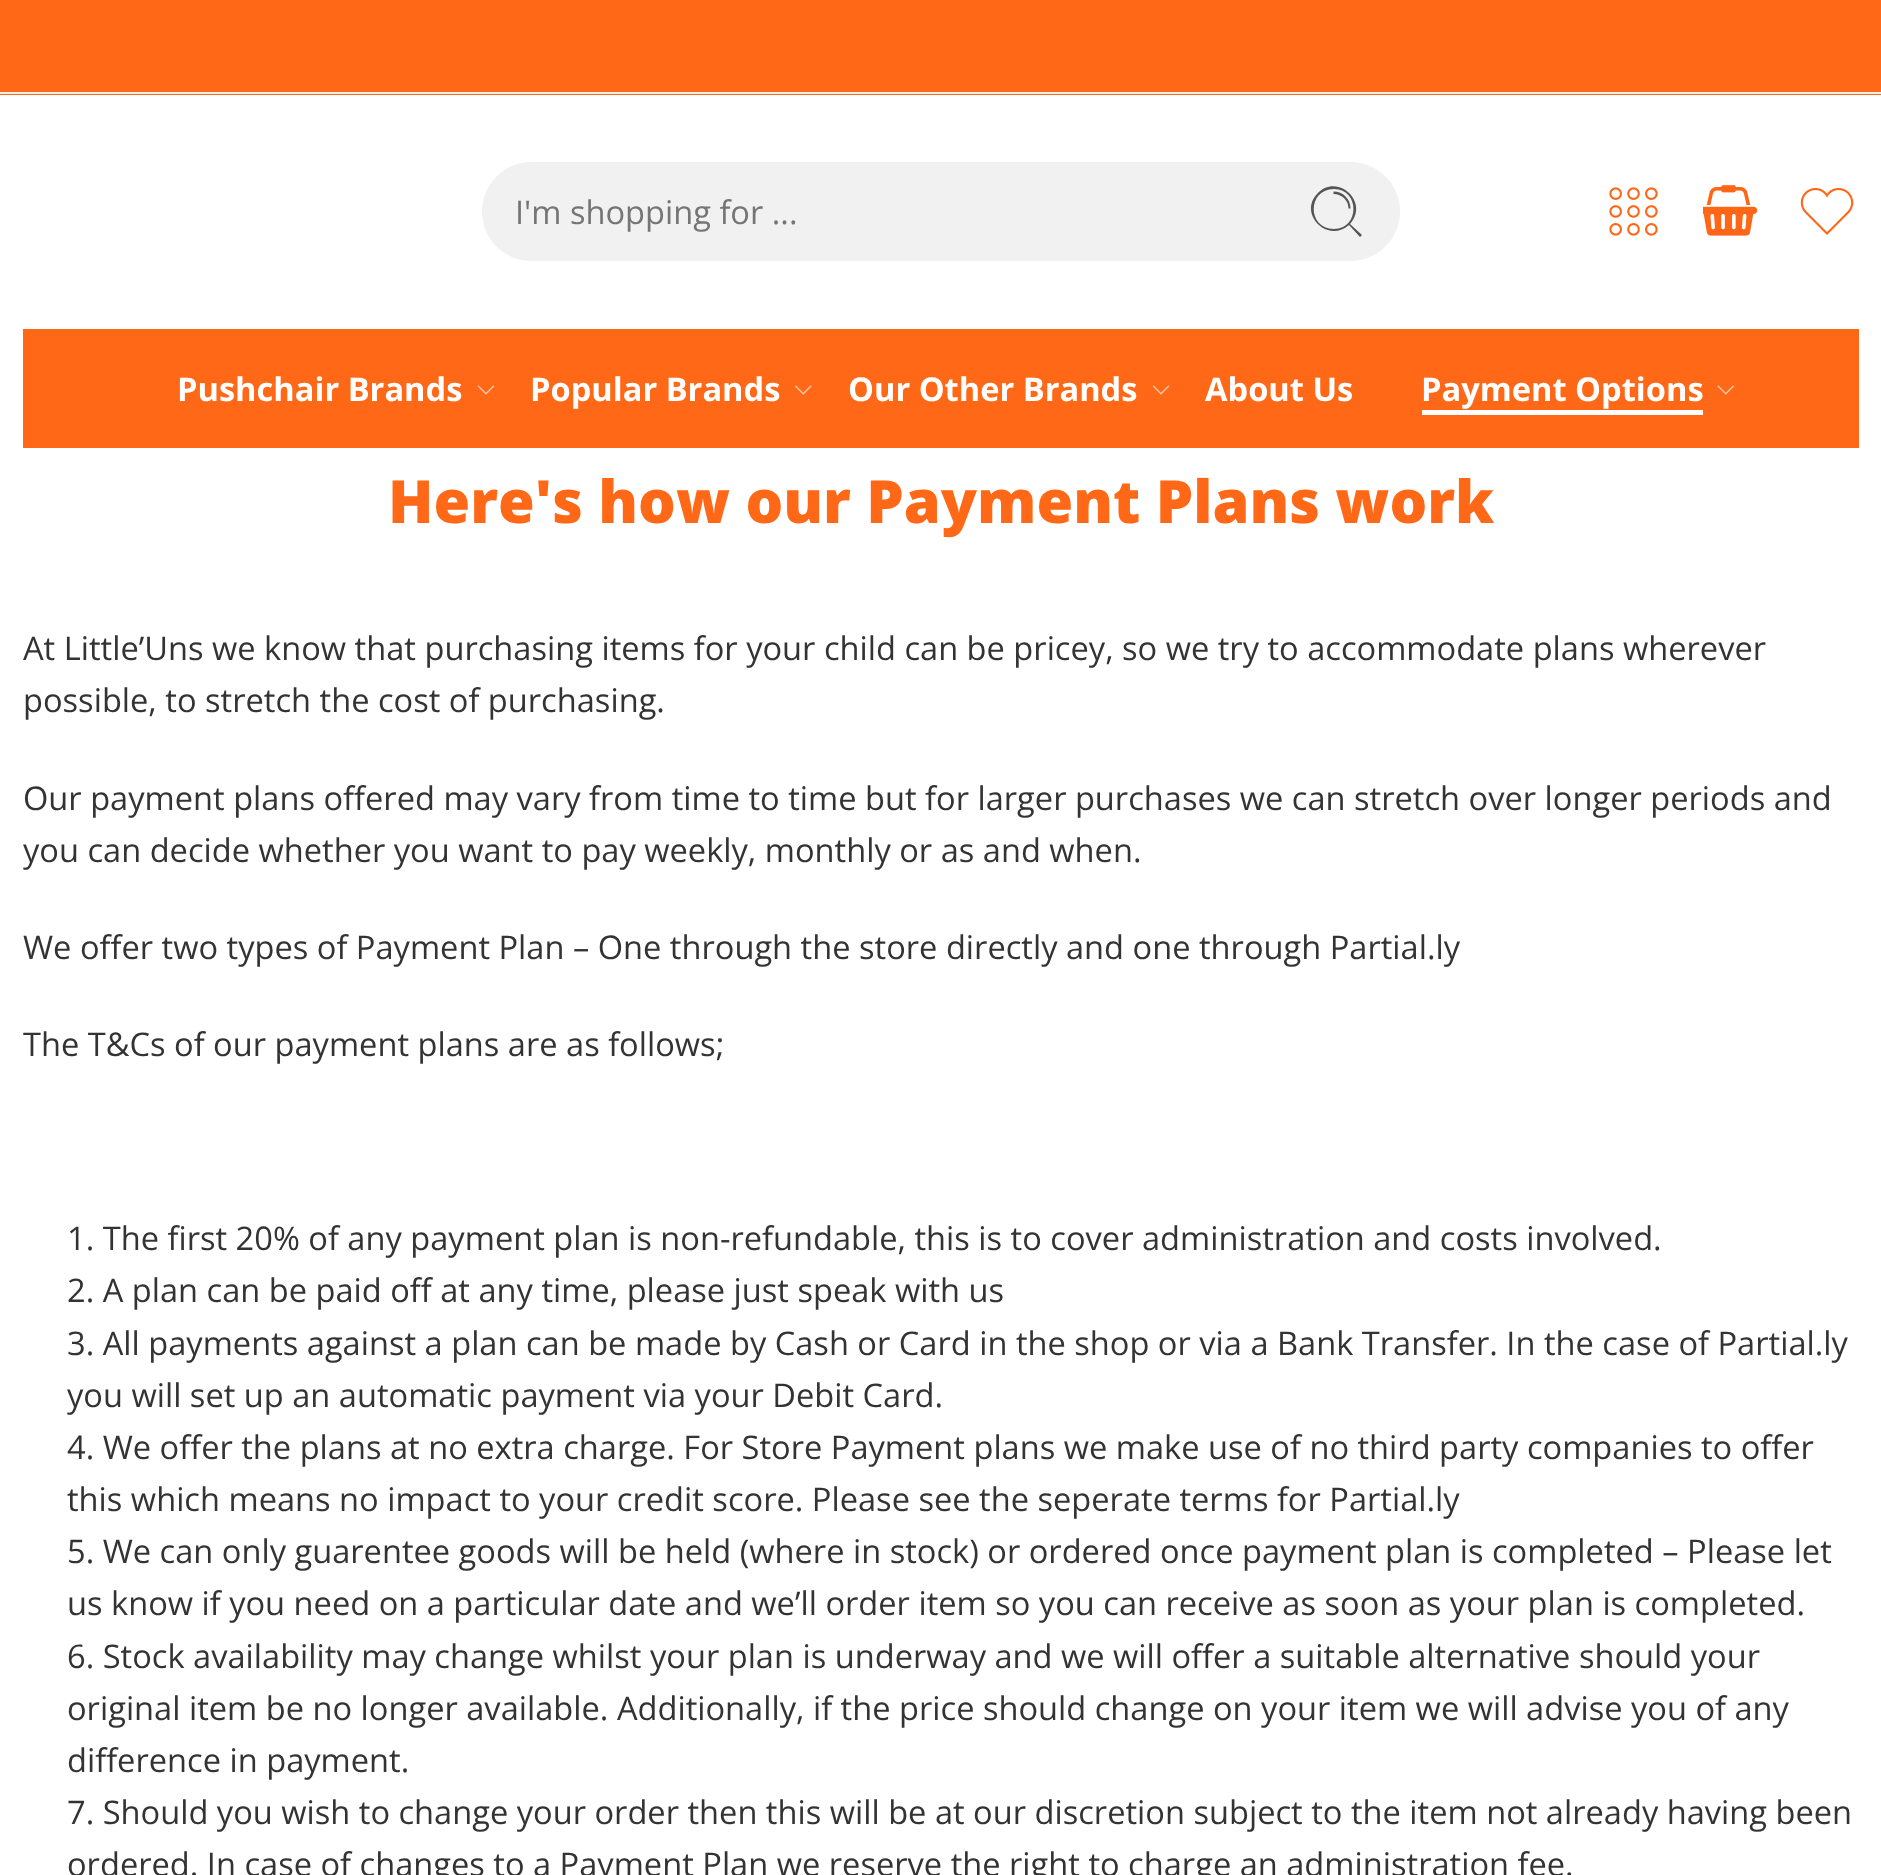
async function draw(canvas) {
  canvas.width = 1881
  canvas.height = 1875
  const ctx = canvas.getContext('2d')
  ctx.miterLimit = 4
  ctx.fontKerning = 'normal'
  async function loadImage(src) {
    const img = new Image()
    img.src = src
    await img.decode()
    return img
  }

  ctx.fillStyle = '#fff'
  ctx.fillRect(0, 0, 1881, 1875)
  ctx.fillStyle = '#ff6816'
  ctx.fillRect(0, 0, 1881, 95)
  ctx.fillStyle = '#ececec'
  ctx.fillRect(0, 92, 1881, 2)
  ctx.fillStyle = '#f1f1f1'
  ctx.beginPath()
  ctx.roundRect(482, 162, 918, 99, 49.5)
  ctx.fill()
  ctx.font = '32.62px Open Sans'
  ctx.fillStyle = '#757575'
  ctx.fillText('I\'m shopping for ...', 515, 224)
  ctx.fillStyle = '#555'
  ctx.beginPath()
  ctx.moveTo(1362, 235)
  ctx.lineTo(1350, 224)
  ctx.bezierCurveTo(1370, 202, 1337, 172, 1317, 194)
  ctx.bezierCurveTo(1298, 214, 1328, 244, 1349, 225)
  ctx.lineTo(1360, 237)
  ctx.closePath()
  ctx.moveTo(1334, 229)
  ctx.bezierCurveTo(1307, 229, 1307, 189, 1334, 189)
  ctx.bezierCurveTo(1360, 189, 1360, 229, 1334, 229)
  ctx.closePath()
  ctx.fill()
  ctx.beginPath()
  ctx.moveTo(1333.5, 191.5)
  ctx.lineTo(1333.5, 194)
  ctx.bezierCurveTo(1342, 194, 1348.5, 200.5, 1348.5, 208.5)
  ctx.lineTo(1350.5, 208.5)
  ctx.bezierCurveTo(1350.5, 199, 1343, 191.5, 1333.5, 191.5)
  ctx.closePath()
  ctx.fill()
  ctx.drawImage(await loadImage('image0.png'), 1609, 187, 49, 49)
  ctx.drawImage(await loadImage('image1.png'), 1703, 185, 55, 51)
  ctx.drawImage(await loadImage('image2.png'), 1800, 188, 54, 47)
  ctx.fillStyle = '#ff6816'
  ctx.fillRect(23, 329, 1836, 119)
  ctx.font = 'bold 32.62px Open Sans'
  ctx.fillStyle = '#fff'
  ctx.fillText('Pushchair Brands', 177, 401)
  ctx.drawImage(await loadImage('image3.png'), 477, 385, 18, 10)
  ctx.fillText('Popular Brands', 530, 401)
  ctx.drawImage(await loadImage('image4.png'), 794, 385, 18, 10)
  ctx.fillText('Our Other Brands', 848, 401)
  ctx.drawImage(await loadImage('image3.png'), 1152, 385, 18, 10)
  ctx.fillText('About Us', 1205, 401)
  ctx.fillText('Payment Options', 1421, 401)
  ctx.drawImage(await loadImage('image5.png'), 1717, 385, 18, 10)
  ctx.fillRect(1422, 410, 281, 5)
  ctx.font = '800 59.4px Open Sans'
  ctx.fillStyle = '#ff6816'
  ctx.fillText('Here\'s how our Payment Plans work', 388, 523)
  ctx.font = '32.62px Open Sans'
  ctx.fillStyle = '#333'
  ctx.fillText('At Little’Uns we know that purchasing items for your child can be pricey, so we try to accommodate plans wherever', 23, 660)
  ctx.fillText('possible, to stretch the cost of purchasing.', 23, 712)
  ctx.fillText('Our payment plans offered may vary from time to time but for larger purchases we can stretch over longer periods and', 23, 810)
  ctx.fillText('you can decide whether you want to pay weekly, monthly or as and when.', 23, 862)
  ctx.fillText('We offer two types of Payment Plan – One through the store directly and one through Partial.ly', 23, 959)
  ctx.fillText('The T&Cs of our payment plans are as follows;', 23, 1056)
  ctx.fillText('1. The first 20% of any payment plan is non-refundable, this is to cover administration and costs involved.', 67, 1250)
  ctx.fillText('2. A plan can be paid off at any time, please just speak with us', 67, 1302)
  ctx.fillText('3. All payments against a plan can be made by Cash or Card in the shop or via a Bank Transfer. In the case of Partial.ly', 67, 1355)
  ctx.fillText('you will set up an automatic payment via your Debit Card.', 67, 1407)
  ctx.fillText('4. We offer the plans at no extra charge. For Store Payment plans we make use of no third party companies to offer', 67, 1459)
  ctx.fillText('this which means no impact to your credit score. Please see the seperate terms for Partial.ly', 67, 1511)
  ctx.fillText('5. We can only guarentee goods will be held (where in stock) or ordered once payment plan is completed – Please let', 67, 1563)
  ctx.fillText('us know if you need on a particular date and we’ll order item so you can receive as soon as your plan is completed.', 67, 1615)
  ctx.fillText('6. Stock availability may change whilst your plan is underway and we will offer a suitable alternative should your', 67, 1668)
  ctx.fillText('original item be no longer available. Additionally, if the price should change on your item we will advise you of any', 67, 1720)
  ctx.fillText('difference in payment.', 67, 1772)
  ctx.fillText('7. Should you wish to change your order then this will be at our discretion subject to the item not already having been', 67, 1824)
  ctx.fillText('ordered. In case of changes to a Payment Plan we reserve the right to charge an administration fee.', 67, 1876)
}

draw(document.querySelector('canvas'))
